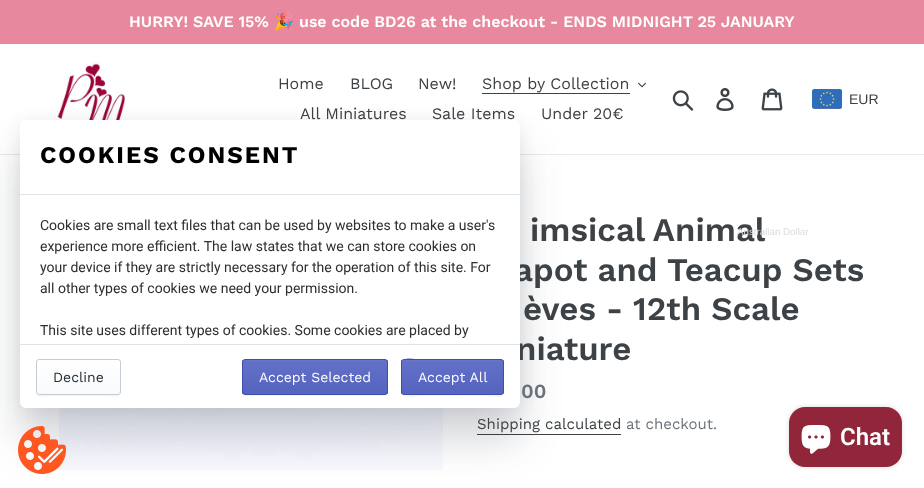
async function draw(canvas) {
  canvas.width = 924
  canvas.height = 488
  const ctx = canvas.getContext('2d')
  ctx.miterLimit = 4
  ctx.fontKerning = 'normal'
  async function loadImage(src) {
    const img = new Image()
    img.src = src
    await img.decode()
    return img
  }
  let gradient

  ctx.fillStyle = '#fff'
  ctx.fillRect(0, 0, 924, 488)
  ctx.fillStyle = '#e7889e'
  ctx.fillRect(0, 0, 924, 44)
  ctx.font = '600 16px Work Sans'
  ctx.fillStyle = '#fff'
  ctx.fillText('HURRY! SAVE 15%', 129, 27)
  ctx.font = 'bold 16px Noto Color Emoji'
  ctx.fillText('🎉', 274, 27)
  ctx.font = '600 16px Work Sans'
  ctx.fillText('use code BD26 at the checkout - ENDS MIDNIGHT 25 JANUARY', 299, 27)
  ctx.fillStyle = '#e8e9eb'
  ctx.fillRect(0, 154, 924, 1)
  ctx.drawImage(await loadImage('image0.png'), 57, 62, 68, 58)
  ctx.font = '16px Work Sans'
  ctx.fillStyle = '#3d4246'
  ctx.fillText('Home', 278, 89)
  ctx.fillText('BLOG', 350, 89)
  ctx.fillText('New!', 418, 89)
  ctx.fillText('Shop by Collection', 482, 89)
  ctx.fillRect(482, 93, 148, 1)
  ctx.drawImage(await loadImage('image1.png'), 638, 82, 8, 6)
  ctx.fillText('All Miniatures', 300, 119)
  ctx.fillText('Sale Items', 432, 119)
  ctx.fillText('Under 20€', 541, 119)
  ctx.drawImage(await loadImage('image2.png'), 672, 90, 22, 21)
  ctx.drawImage(await loadImage('image3.png'), 716, 88, 18, 23)
  ctx.drawImage(await loadImage('image4.png'), 761, 88, 22, 23)
  ctx.drawImage(await loadImage('image5.png'), 812, 89, 30, 20)
  ctx.font = '14px Liberation Sans'
  ctx.fillStyle = '#403f3f'
  ctx.fillText('EUR', 849, 104)
  ctx.wordSpacing = '-1px'
  ctx.font = '600 33px Work Sans'
  ctx.fillStyle = '#3d4246'
  ctx.fillText('imsical Animal', 530, 241)
  ctx.wordSpacing = '0px'
  ctx.font = '9.75px Liberation Sans'
  ctx.fillStyle = '#dbdcdd'
  ctx.fillText('Australian Dollar', 737, 235)
  ctx.drawImage(await loadImage('image7.png'), 59, 408, 384, 62)
  ctx.fillStyle = '#3d4246'
  ctx.fillRect(477, 434, 144, 1)
  ctx.fillStyle = '#202a3614'
  ctx.filter = 'blur(8px)'
  ctx.beginPath()
  ctx.roundRect(20, 122, 500, 288, 6)
  ctx.fill()
  ctx.filter = 'none'
  ctx.fillStyle = '#202a3533'
  ctx.filter = 'blur(20.5px)'
  ctx.beginPath()
  ctx.roundRect(20, 151, 500, 288, 6)
  ctx.fill()
  ctx.filter = 'none'
  ctx.font = '600 33px Work Sans'
  ctx.fillStyle = '#3d4246'
  ctx.fillText('apot and Teacup Sets', 514, 281)
  ctx.fillText('niature', 516, 360)
  ctx.fillStyle = '#fff'
  ctx.beginPath()
  ctx.roundRect(20, 120, 500, 288, 6)
  ctx.fill()
  ctx.fillStyle = '#dfe3e8'
  ctx.fillRect(20, 194, 500, 1)
  ctx.letterSpacing = '2px'
  ctx.font = 'bold 24px Work Sans'
  ctx.fillStyle = '#000'
  ctx.fillText('COOKIES CONSENT', 40, 163)
  ctx.letterSpacing = '0px'
  ctx.font = '14px Roboto'
  ctx.fillStyle = '#2e2e2e'
  ctx.fillText('Cookies are small text files that can be used by websites to make a user\'s', 40, 230)
  ctx.fillText('experience more efficient. The law states that we can store cookies on', 40, 251)
  ctx.fillText('your device if they are strictly necessary for the operation of this site. For', 40, 272)
  ctx.fillText('all other types of cookies we need your permission.', 40, 293)
  ctx.fillText('This site uses different types of cookies. Some cookies are placed by', 40, 335)
  ctx.fillStyle = '#dfe3e8'
  ctx.fillRect(20, 344, 500, 1)
  ctx.fillStyle = '#f3f4f4'
  ctx.beginPath()
  ctx.moveTo(36, 392)
  ctx.bezierCurveTo(36, 399, 48, 396, 52, 396)
  ctx.lineTo(105, 396)
  ctx.bezierCurveTo(109, 396, 121, 399, 121, 392)
  ctx.bezierCurveTo(121, 394, 120, 395, 118, 395)
  ctx.lineTo(39, 395)
  ctx.bezierCurveTo(37, 395, 36, 394, 36, 392)
  ctx.closePath()
  ctx.fill()
  ctx.save()
  ctx.beginPath()
  ctx.roundRect(36, 359, 85, 36, 3)
  ctx.clip()
  gradient = ctx.createLinearGradient(79, 360, 79, 394)
  gradient.addColorStop(0, '#fff')
  gradient.addColorStop(1, '#f9fafb')
  ctx.fillStyle = gradient
  ctx.fillRect(36, 360, 85, 34)
  ctx.restore()
  ctx.beginPath()
  ctx.roundRect(36.5, 359.5, 84, 35, 2.5)
  ctx.strokeStyle = '#c4cdd5'
  ctx.stroke()
  ctx.font = '14px Work Sans'
  ctx.fillStyle = '#212b36'
  ctx.fillText('Decline', 53, 382)
  ctx.fillStyle = '#f3f4f4'
  ctx.beginPath()
  ctx.moveTo(242, 392)
  ctx.lineTo(242, 393)
  ctx.bezierCurveTo(242, 395, 243, 396, 245, 396)
  ctx.lineTo(385, 396)
  ctx.bezierCurveTo(387, 396, 388, 395, 388, 393)
  ctx.lineTo(388, 392)
  ctx.bezierCurveTo(388, 394, 387, 395, 385, 395)
  ctx.lineTo(245, 395)
  ctx.bezierCurveTo(243, 395, 242, 394, 242, 392)
  ctx.closePath()
  ctx.fill()
  ctx.save()
  ctx.beginPath()
  ctx.roundRect(242, 359, 146, 36, 3)
  ctx.clip()
  gradient = ctx.createLinearGradient(315, 360, 315, 394)
  gradient.addColorStop(0, '#6371c7')
  gradient.addColorStop(1, '#5563c1')
  ctx.fillStyle = gradient
  ctx.fillRect(242, 360, 146, 34)
  ctx.restore()
  ctx.fillStyle = '#6774c8'
  ctx.beginPath()
  ctx.moveTo(245, 361)
  ctx.lineTo(385, 361)
  ctx.bezierCurveTo(386, 361, 387, 362, 387, 363)
  ctx.bezierCurveTo(387, 362, 387, 361, 386, 360)
  ctx.lineTo(245, 360)
  ctx.lineTo(243, 361)
  ctx.lineTo(243, 363)
  ctx.bezierCurveTo(243, 362, 244, 361, 245, 361)
  ctx.closePath()
  ctx.fill()
  ctx.beginPath()
  ctx.roundRect(242.5, 359.5, 145, 35, 2.5)
  ctx.strokeStyle = '#3f4eae'
  ctx.stroke()
  ctx.fillStyle = '#fff'
  ctx.fillText('Accept Selected', 259, 382)
  ctx.fillStyle = '#f3f4f4'
  ctx.beginPath()
  ctx.moveTo(401, 392)
  ctx.bezierCurveTo(401, 400, 417, 396, 420, 396)
  ctx.lineTo(485, 396)
  ctx.bezierCurveTo(488, 396, 504, 400, 504, 392)
  ctx.bezierCurveTo(504, 394, 503, 395, 501, 395)
  ctx.lineTo(404, 395)
  ctx.bezierCurveTo(402, 395, 401, 394, 401, 392)
  ctx.closePath()
  ctx.fill()
  ctx.save()
  ctx.beginPath()
  ctx.roundRect(401, 359, 103, 36, 3)
  ctx.clip()
  gradient = ctx.createLinearGradient(453, 360, 453, 394)
  gradient.addColorStop(0, '#6371c7')
  gradient.addColorStop(1, '#5563c1')
  ctx.fillStyle = gradient
  ctx.fillRect(401, 360, 103, 34)
  ctx.restore()
  ctx.fillStyle = '#6774c8'
  ctx.beginPath()
  ctx.moveTo(404, 361)
  ctx.lineTo(501, 361)
  ctx.bezierCurveTo(502, 361, 503, 362, 503, 363)
  ctx.bezierCurveTo(503, 362, 503, 360, 501, 360)
  ctx.lineTo(420, 360)
  ctx.bezierCurveTo(419, 360, 402, 355, 402, 363)
  ctx.bezierCurveTo(402, 362, 403, 361, 404, 361)
  ctx.closePath()
  ctx.fill()
  ctx.beginPath()
  ctx.roundRect(401.5, 359.5, 102, 35, 2.5)
  ctx.stroke()
  ctx.fillStyle = '#fff'
  ctx.fillText('Accept All', 418, 382)
  ctx.drawImage(await loadImage('image6.png'), 18, 426, 48, 48)
  ctx.font = '600 33px Work Sans'
  ctx.fillStyle = '#3d4246'
  ctx.fillText('èves - 12th Scale', 523, 320)
  ctx.font = '600 20px Work Sans'
  ctx.fillStyle = '#69727b'
  ctx.fillText('00', 521, 398)
  ctx.font = '15px Work Sans'
  ctx.fillStyle = '#3d4246'
  ctx.fillText('Shipping calculated', 477, 429)
  ctx.fillStyle = '#69727b'
  ctx.fillText('at checkout.', 626, 429)
  ctx.fillStyle = '#00000026'
  ctx.filter = 'blur(2.5px)'
  ctx.beginPath()
  ctx.roundRect(789, 407, 113, 60, 16)
  ctx.fill()
  ctx.filter = 'none'
  ctx.fillStyle = '#91263a'
  ctx.beginPath()
  ctx.roundRect(789, 407, 113, 60, 16)
  ctx.fill()
  ctx.drawImage(await loadImage('image8.png'), 801, 425, 30, 29)
  ctx.font = '600 24px Roboto'
  ctx.fillStyle = '#fff'
  ctx.fillText('Chat', 840, 445)
}

draw(document.querySelector('canvas'))
